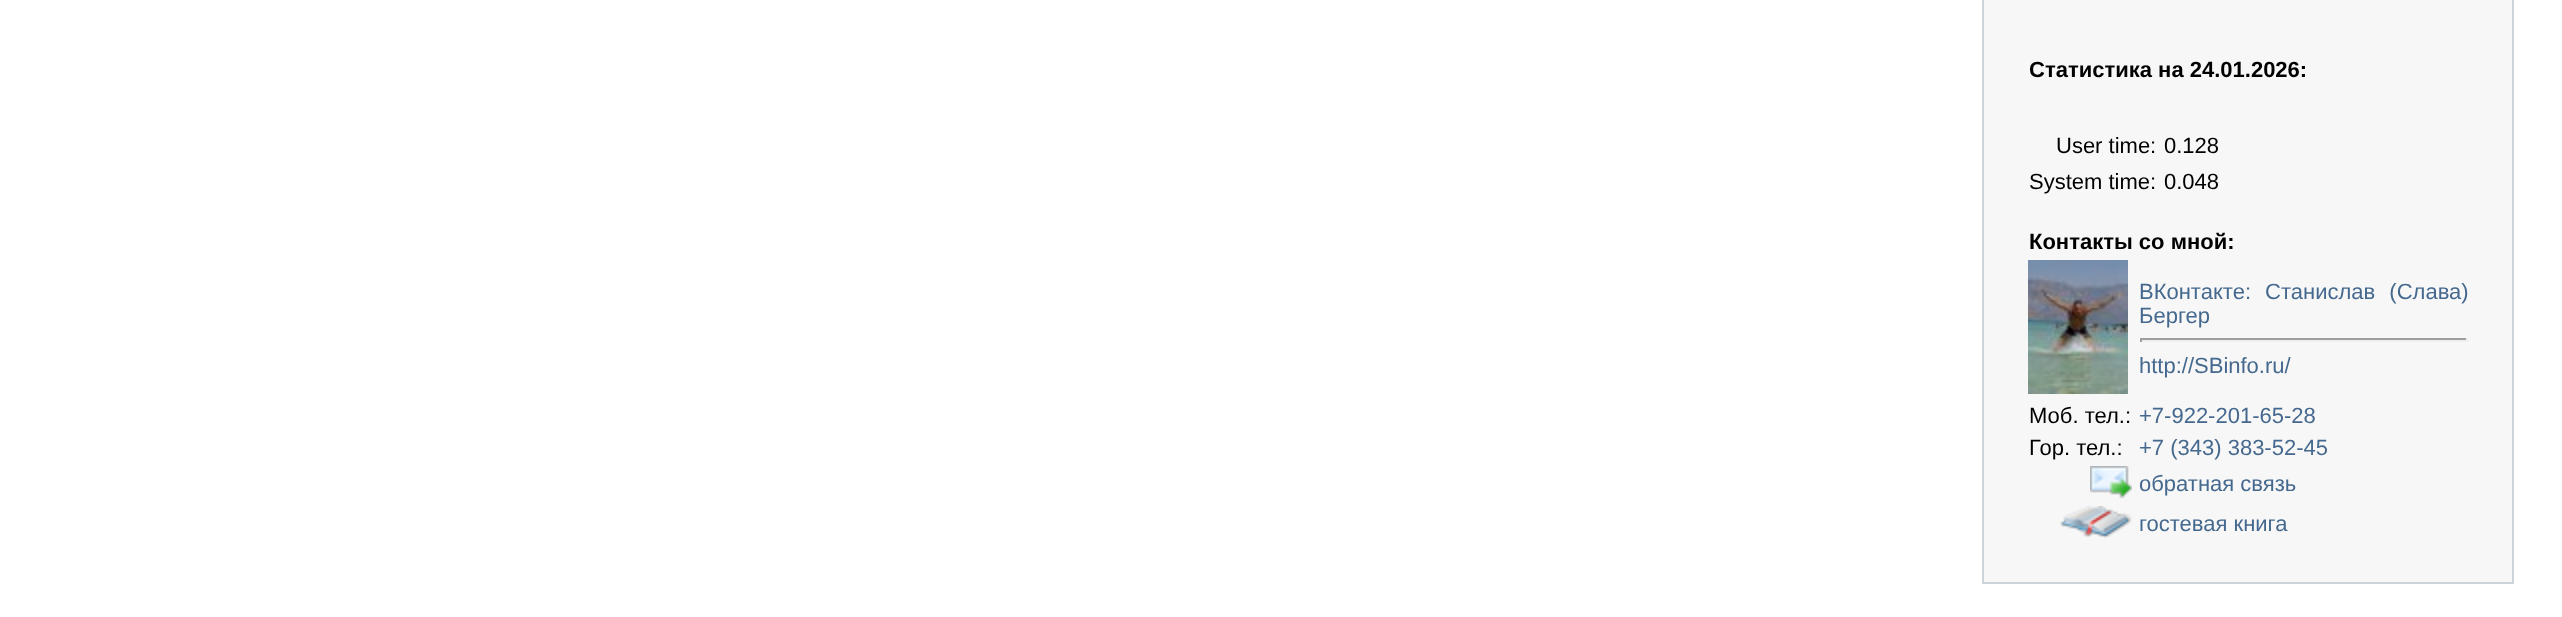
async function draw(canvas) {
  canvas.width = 2562
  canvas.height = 617
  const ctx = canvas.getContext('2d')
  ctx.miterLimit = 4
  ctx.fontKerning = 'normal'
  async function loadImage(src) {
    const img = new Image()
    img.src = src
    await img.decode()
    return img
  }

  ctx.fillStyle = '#fff'
  ctx.fillRect(0, 0, 2562, 617)
  ctx.fillStyle = '#ccd3da'
  ctx.fillRect(1982, 0, 532, 584)
  ctx.fillStyle = '#f7f7f7'
  ctx.fillRect(1984, 0, 528, 582)
  ctx.font = 'bold 22px Liberation Sans'
  ctx.fillStyle = '#000'
  ctx.fillText('Статистика на 24.01.2026:', 2029, 77)
  ctx.font = '22px Liberation Sans'
  ctx.fillText('User time:', 2056, 153)
  ctx.fillText('0.128', 2164, 153)
  ctx.fillText('System time:', 2029, 189)
  ctx.fillText('0.048', 2164, 189)
  ctx.font = 'bold 22px Liberation Sans'
  ctx.fillText('Контакты со мной:', 2029, 249)
  ctx.drawImage(await loadImage('image0.png'), 2028, 260, 100, 134)
  ctx.wordSpacing = '8px'
  ctx.font = '22px Liberation Sans'
  ctx.fillStyle = '#45688e'
  ctx.fillText('ВКонтакте: Станислав (Слава)', 2139, 299)
  ctx.wordSpacing = '0px'
  ctx.fillText('Бергер', 2139, 323)
  ctx.fillStyle = '#9f9f9f'
  ctx.fillRect(2140, 338, 328, 2)
  ctx.fillStyle = '#eee'
  ctx.fillRect(2466, 338, 2, 4)
  ctx.fillRect(2140, 340, 328, 2)
  ctx.fillStyle = '#9f9f9f'
  ctx.fillRect(2140, 338, 2, 4)
  ctx.fillStyle = '#45688e'
  ctx.fillText('http://SBinfo.ru/', 2139, 373)
  ctx.fillStyle = '#000'
  ctx.fillText('Моб. тел.:', 2029, 423)
  ctx.fillStyle = '#45688e'
  ctx.fillText('+7-922-201-65-28', 2139, 423)
  ctx.fillStyle = '#000'
  ctx.fillText('Гор. тел.:', 2029, 455)
  ctx.fillStyle = '#45688e'
  ctx.fillText('+7 (343) 383-52-45', 2139, 455)
  ctx.drawImage(await loadImage('image1.png'), 2090, 466, 42, 32)
  ctx.fillText('обратная связь', 2139, 491)
  ctx.drawImage(await loadImage('image2.png'), 2060, 506, 72, 32)
  ctx.fillText('гостевая книга', 2139, 531)
}

draw(document.querySelector('canvas'))
